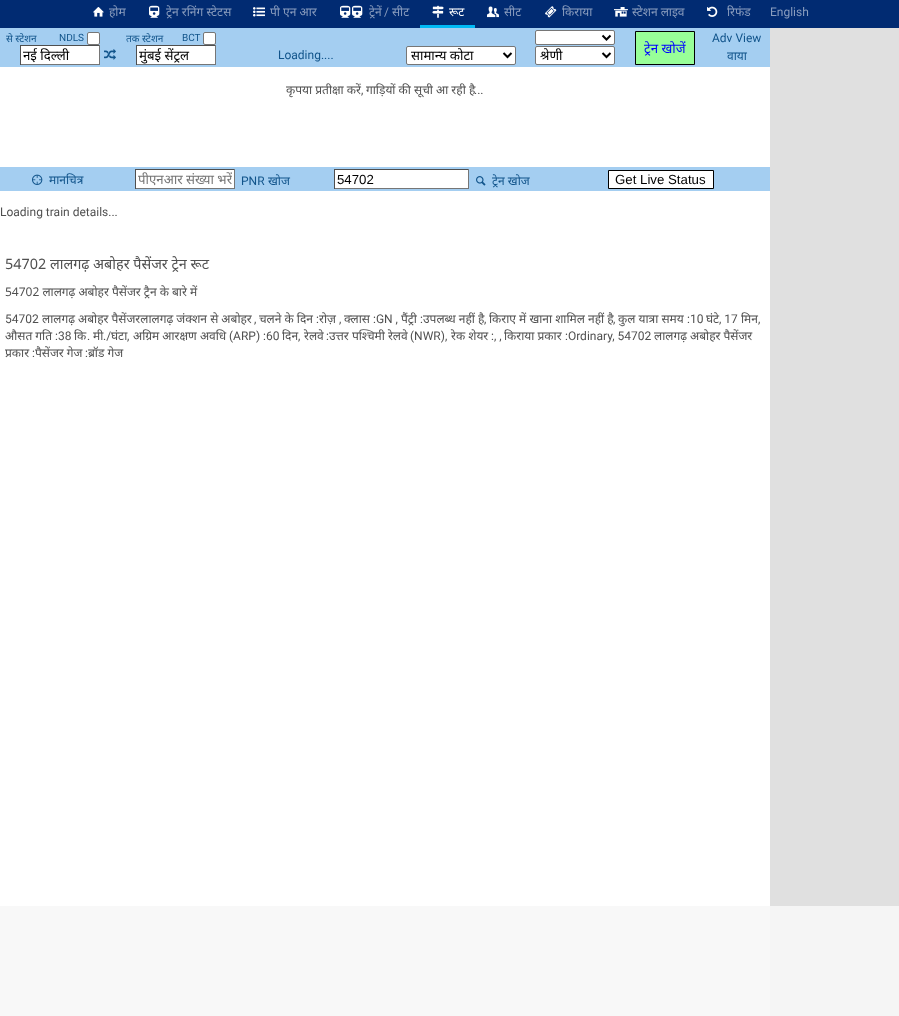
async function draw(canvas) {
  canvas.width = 899
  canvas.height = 1016
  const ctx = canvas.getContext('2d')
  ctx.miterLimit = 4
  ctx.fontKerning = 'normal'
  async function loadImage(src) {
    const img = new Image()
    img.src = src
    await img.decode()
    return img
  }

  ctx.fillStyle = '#e0e0e0'
  ctx.fillRect(0, 0, 899, 1016)
  ctx.fillStyle = '#f5f5f5'
  ctx.fillRect(770, 906, 129, 110)
  ctx.fillStyle = '#012b72'
  ctx.fillRect(0, 0, 899, 28)
  ctx.drawImage(await loadImage('image0.png'), 93, 7, 11, 10)
  ctx.font = '12px Noto Sans'
  ctx.fillStyle = '#8a9dbe'
  ctx.fillText('होम', 109, 16)
  ctx.drawImage(await loadImage('image1.png'), 149, 5, 11, 13)
  ctx.fillText('ट्रेन रनिंग स्टेटस', 166, 16)
  ctx.drawImage(await loadImage('image2.png'), 253, 7, 12, 10)
  ctx.fillText('पी एन आर', 270, 16)
  ctx.drawImage(await loadImage('image1.png'), 340, 5, 11, 13)
  ctx.drawImage(await loadImage('image1.png'), 352, 5, 11, 13)
  ctx.fillText('ट्रेनें', 369, 16)
  ctx.font = '12px Roboto'
  ctx.fillText('/', 384, 16)
  ctx.font = '12px Noto Sans'
  ctx.fillText('सीट', 392, 16)
  ctx.fillStyle = '#00b9f5'
  ctx.fillRect(420, 25, 55, 3)
  ctx.drawImage(await loadImage('image3.png'), 432, 5, 12, 13)
  ctx.fillStyle = '#fff'
  ctx.fillText('रूट', 449, 16)
  ctx.drawImage(await loadImage('image4.png'), 487, 6, 12, 12)
  ctx.fillStyle = '#8a9dbe'
  ctx.fillText('सीट', 504, 16)
  ctx.drawImage(await loadImage('image5.png'), 545, 6, 12, 12)
  ctx.fillText('किराया', 562, 16)
  ctx.drawImage(await loadImage('image6.png'), 614, 7, 14, 10)
  ctx.fillText('स्टेशन लाइव', 632, 16)
  ctx.drawImage(await loadImage('image7.png'), 707, 6, 11, 11)
  ctx.fillText('रिफंड', 727, 16)
  ctx.font = '12px Roboto'
  ctx.fillText('English', 770, 16)
  ctx.fillStyle = '#fff'
  ctx.fillRect(0, 67, 770, 839)
  ctx.fillStyle = '#f8f8f8'
  ctx.fillRect(0, 906, 770, 110)
  ctx.fillStyle = '#a4cef1'
  ctx.fillRect(0, 28, 770, 39)
  ctx.font = '10px Noto Sans'
  ctx.fillStyle = '#11548b'
  ctx.fillText('से स्टेशन', 6, 42)
  ctx.font = '10px Roboto'
  ctx.fillText('NDLS', 59, 41)
  ctx.fillStyle = '#fff'
  ctx.beginPath()
  ctx.roundRect(87.5, 32.5, 12, 12, 1.5)
  ctx.fill()
  ctx.strokeStyle = '#767676'
  ctx.stroke()
  ctx.font = '10px Noto Sans'
  ctx.fillStyle = '#11548b'
  ctx.fillText('तक स्टेशन', 126, 42)
  ctx.font = '10px Roboto'
  ctx.fillText('BCT', 182, 41)
  ctx.fillStyle = '#fff'
  ctx.beginPath()
  ctx.roundRect(203.5, 32.5, 12, 12, 1.5)
  ctx.fill()
  ctx.stroke()
  ctx.beginPath()
  ctx.roundRect(535.5, 30.5, 79, 14, 1.5)
  ctx.fill()
  ctx.stroke()
  ctx.beginPath()
  ctx.moveTo(602.5, 35.5)
  ctx.lineTo(606.5, 39.5)
  ctx.lineTo(610.5, 35.5)
  ctx.strokeStyle = '#000'
  ctx.lineWidth = 2
  ctx.stroke()
  ctx.font = '12px Roboto'
  ctx.fillStyle = '#11548b'
  ctx.fillText('Adv View', 712, 42)
  ctx.fillStyle = '#98ff98'
  ctx.beginPath()
  ctx.rect(635.5, 31.5, 59, 33)
  ctx.fill()
  ctx.lineWidth = 1
  ctx.stroke()
  ctx.font = '13.25px Noto Sans'
  ctx.fillStyle = '#00f'
  ctx.fillText('ट्रेन खोजें', 644, 53)
  ctx.fillStyle = '#fff'
  ctx.fillRect(21, 46, 78, 18)
  ctx.fillStyle = '#4f4f4f'
  ctx.fillRect(20, 45, 80, 1)
  ctx.fillStyle = '#767676'
  ctx.fillRect(99, 45, 1, 20)
  ctx.fillRect(20, 64, 80, 1)
  ctx.fillStyle = '#4f4f4f'
  ctx.fillRect(20, 45, 1, 20)
  ctx.fillStyle = '#000'
  ctx.fillText('नई दिल्ली', 23, 60)
  ctx.drawImage(await loadImage('image8.png'), 104, 49, 12, 11)
  ctx.fillStyle = '#fff'
  ctx.fillRect(137, 46, 78, 18)
  ctx.fillStyle = '#4f4f4f'
  ctx.fillRect(136, 45, 80, 1)
  ctx.fillStyle = '#767676'
  ctx.fillRect(215, 45, 1, 20)
  ctx.fillRect(136, 64, 80, 1)
  ctx.fillStyle = '#4f4f4f'
  ctx.fillRect(136, 45, 1, 20)
  ctx.save()
  ctx.beginPath()
  ctx.rect(139, 46, 74, 18)
  ctx.clip()
  ctx.fillStyle = '#000'
  ctx.fillText('मुंबई सेंट्रल', 139, 60)
  ctx.restore()
  ctx.font = '12px Roboto'
  ctx.fillStyle = '#11548b'
  ctx.fillText('Loading....', 278, 59)
  ctx.fillStyle = '#fff'
  ctx.beginPath()
  ctx.roundRect(406.5, 46.5, 109, 18, 1.5)
  ctx.fill()
  ctx.strokeStyle = '#767676'
  ctx.stroke()
  ctx.beginPath()
  ctx.moveTo(503.5, 53)
  ctx.lineTo(507.5, 57)
  ctx.lineTo(511.5, 53)
  ctx.strokeStyle = '#000'
  ctx.lineWidth = 2
  ctx.stroke()
  ctx.font = '13.25px Noto Sans'
  ctx.fillStyle = '#000'
  ctx.fillText('सामान्य कोटा', 411, 60)
  ctx.fillStyle = '#fff'
  ctx.beginPath()
  ctx.roundRect(535.5, 46.5, 79, 18, 1.5)
  ctx.fill()
  ctx.strokeStyle = '#767676'
  ctx.lineWidth = 1
  ctx.stroke()
  ctx.beginPath()
  ctx.moveTo(602.5, 53)
  ctx.lineTo(606.5, 57)
  ctx.lineTo(610.5, 53)
  ctx.strokeStyle = '#000'
  ctx.lineWidth = 2
  ctx.stroke()
  ctx.save()
  ctx.beginPath()
  ctx.rect(540, 47, 58, 17)
  ctx.clip()
  ctx.fillStyle = '#000'
  ctx.fillText('श्रेणी', 540, 60)
  ctx.restore()
  ctx.font = '12px Noto Sans'
  ctx.fillStyle = '#11548b'
  ctx.fillText('वाया', 727, 60)
  ctx.fillStyle = '#505050'
  ctx.fillText('कृपया प्रतीक्षा करें', 286, 94)
  ctx.font = '12px Roboto'
  ctx.fillText(',', 361, 94)
  ctx.font = '12px Noto Sans'
  ctx.fillText('गाड़ियों की सूची आ रही है', 366, 94)
  ctx.font = '12px Roboto'
  ctx.fillText('...', 474, 94)
  ctx.fillStyle = '#a4cef1'
  ctx.fillRect(0, 167, 770, 24)
  ctx.drawImage(await loadImage('image9.png'), 32, 174, 11, 11)
  ctx.font = '12px Noto Sans'
  ctx.fillStyle = '#11548b'
  ctx.fillText('मानचित्र', 49, 184)
  ctx.fillStyle = '#fff'
  ctx.fillRect(136, 170, 98, 18)
  ctx.fillStyle = '#4f4f4f'
  ctx.fillRect(135, 169, 100, 1)
  ctx.fillStyle = '#767676'
  ctx.fillRect(234, 169, 1, 20)
  ctx.fillRect(135, 188, 100, 1)
  ctx.fillStyle = '#4f4f4f'
  ctx.fillRect(135, 169, 1, 20)
  ctx.save()
  ctx.beginPath()
  ctx.rect(138, 170, 94, 18)
  ctx.clip()
  ctx.font = '13.25px Noto Sans'
  ctx.fillStyle = '#757575'
  ctx.fillText('पीएनआर संख्या भरें', 138, 184)
  ctx.restore()
  ctx.font = '12px Roboto'
  ctx.fillStyle = '#11548b'
  ctx.fillText('PNR', 241, 185)
  ctx.font = '12px Noto Sans'
  ctx.fillText('खोज', 268, 185)
  ctx.fillStyle = '#fff'
  ctx.fillRect(335, 170, 133, 18)
  ctx.fillStyle = '#4f4f4f'
  ctx.fillRect(334, 169, 135, 1)
  ctx.fillStyle = '#767676'
  ctx.fillRect(468, 169, 1, 20)
  ctx.fillRect(334, 188, 135, 1)
  ctx.fillStyle = '#4f4f4f'
  ctx.fillRect(334, 169, 1, 20)
  ctx.font = '13.25px Liberation Sans'
  ctx.fillStyle = '#000'
  ctx.fillText('54702', 337, 184)
  ctx.drawImage(await loadImage('image10.png'), 476, 176, 10, 10)
  ctx.font = '12px Noto Sans'
  ctx.fillStyle = '#11548b'
  ctx.fillText('ट्रेन खोज', 492, 185)
  ctx.fillStyle = '#fff'
  ctx.beginPath()
  ctx.rect(608.5, 170.5, 105, 18)
  ctx.fill()
  ctx.lineWidth = 1
  ctx.stroke()
  ctx.font = '13.25px Liberation Sans'
  ctx.fillStyle = '#000'
  ctx.fillText('Get Live Status', 615, 184)
  ctx.font = '12px Roboto'
  ctx.fillStyle = '#505050'
  ctx.fillText('Loading train details...', 0, 216)
  ctx.font = '14.4px Noto Sans'
  ctx.fillText('54702 लालगढ़ अबोहर पैसेंजर ट्रेन रूट', 5, 269)
  ctx.font = '12px Noto Sans'
  ctx.fillText('54702 लालगढ़ अबोहर पैसेंजर ट्रैन के बारे में', 5, 296)
  ctx.font = '12px Roboto'
  ctx.fillText('54702', 5, 323)
  ctx.font = '12px Noto Sans'
  ctx.fillText('लालगढ़ अबोहर पैसेंजरलालगढ़ जंक्शन से अबोहर', 42, 323)
  ctx.fillText('चलने के दिन', 259, 323)
  ctx.font = '12px Roboto'
  ctx.fillText(':', 316, 323)
  ctx.font = '12px Noto Sans'
  ctx.fillText('रोज़', 319, 323)
  ctx.fillText('क्लास', 344, 323)
  ctx.font = '12px Roboto'
  ctx.fillText(':GN ,', 373, 323)
  ctx.font = '12px Noto Sans'
  ctx.fillText('पैंट्री', 401, 323)
  ctx.fillText('उपलब्ध नहीं है', 423, 323)
  ctx.fillText('किराए में खाना शामिल नहीं है', 489, 323)
  ctx.font = '12px Roboto'
  ctx.fillText(',', 613, 323)
  ctx.font = '12px Noto Sans'
  ctx.fillText('कुल यात्रा समय', 618, 323)
  ctx.font = '12px Roboto'
  ctx.fillText(':10', 687, 323)
  ctx.font = '12px Noto Sans'
  ctx.fillText('घंटे', 706, 323)
  ctx.font = '12px Roboto'
  ctx.fillText(', 17', 719, 323)
  ctx.font = '12px Noto Sans'
  ctx.fillText('मिन', 741, 323)
  ctx.font = '12px Roboto'
  ctx.fillText(',', 254, 323)
  ctx.fillText(',', 339, 323)
  ctx.fillText(':', 420, 323)
  ctx.fillText(',', 484, 323)
  ctx.fillText(',', 758, 323)
  ctx.font = '12px Noto Sans'
  ctx.fillText('औसत गति', 5, 340)
  ctx.font = '12px Roboto'
  ctx.fillText(':38', 55, 340)
  ctx.font = '12px Noto Sans'
  ctx.fillText('कि', 74, 340)
  ctx.font = '12px Roboto'
  ctx.fillText('.', 87, 340)
  ctx.font = '12px Noto Sans'
  ctx.fillText('मी', 93, 340)
  ctx.font = '12px Roboto'
  ctx.fillText('./', 103, 340)
  ctx.font = '12px Noto Sans'
  ctx.fillText('घंटा', 111, 340)
  ctx.font = '12px Roboto'
  ctx.fillText(',', 127, 340)
  ctx.font = '12px Noto Sans'
  ctx.fillText('अग्रिम आरक्षण अवधि', 133, 340)
  ctx.font = '12px Roboto'
  ctx.fillText('(ARP) :60', 229, 340)
  ctx.font = '12px Noto Sans'
  ctx.fillText('दिन', 282, 340)
  ctx.font = '12px Roboto'
  ctx.fillText(',', 298, 340)
  ctx.font = '12px Noto Sans'
  ctx.fillText('रेलवे', 304, 340)
  ctx.font = '12px Roboto'
  ctx.fillText(':', 326, 340)
  ctx.font = '12px Noto Sans'
  ctx.fillText('उत्तर पश्चिमी रेलवे', 329, 340)
  ctx.font = '12px Roboto'
  ctx.fillText('(NWR),', 410, 340)
  ctx.font = '12px Noto Sans'
  ctx.fillText('रेक शेयर', 451, 340)
  ctx.font = '12px Roboto'
  ctx.fillText(':, ,', 491, 340)
  ctx.font = '12px Noto Sans'
  ctx.fillText('किराया प्रकार', 504, 340)
  ctx.font = '12px Roboto'
  ctx.fillText(':Ordinary, 54702', 565, 340)
  ctx.font = '12px Noto Sans'
  ctx.fillText('लालगढ़ अबोहर पैसेंजर', 654, 340)
  ctx.fillText('प्रकार', 5, 357)
  ctx.font = '12px Roboto'
  ctx.fillText(':', 32, 357)
  ctx.font = '12px Noto Sans'
  ctx.fillText('पैसेंजर गेज', 35, 357)
  ctx.font = '12px Roboto'
  ctx.fillText(':', 85, 357)
  ctx.font = '12px Noto Sans'
  ctx.fillText('ब्रॉड गेज', 88, 357)
}

draw(document.querySelector('canvas'))
